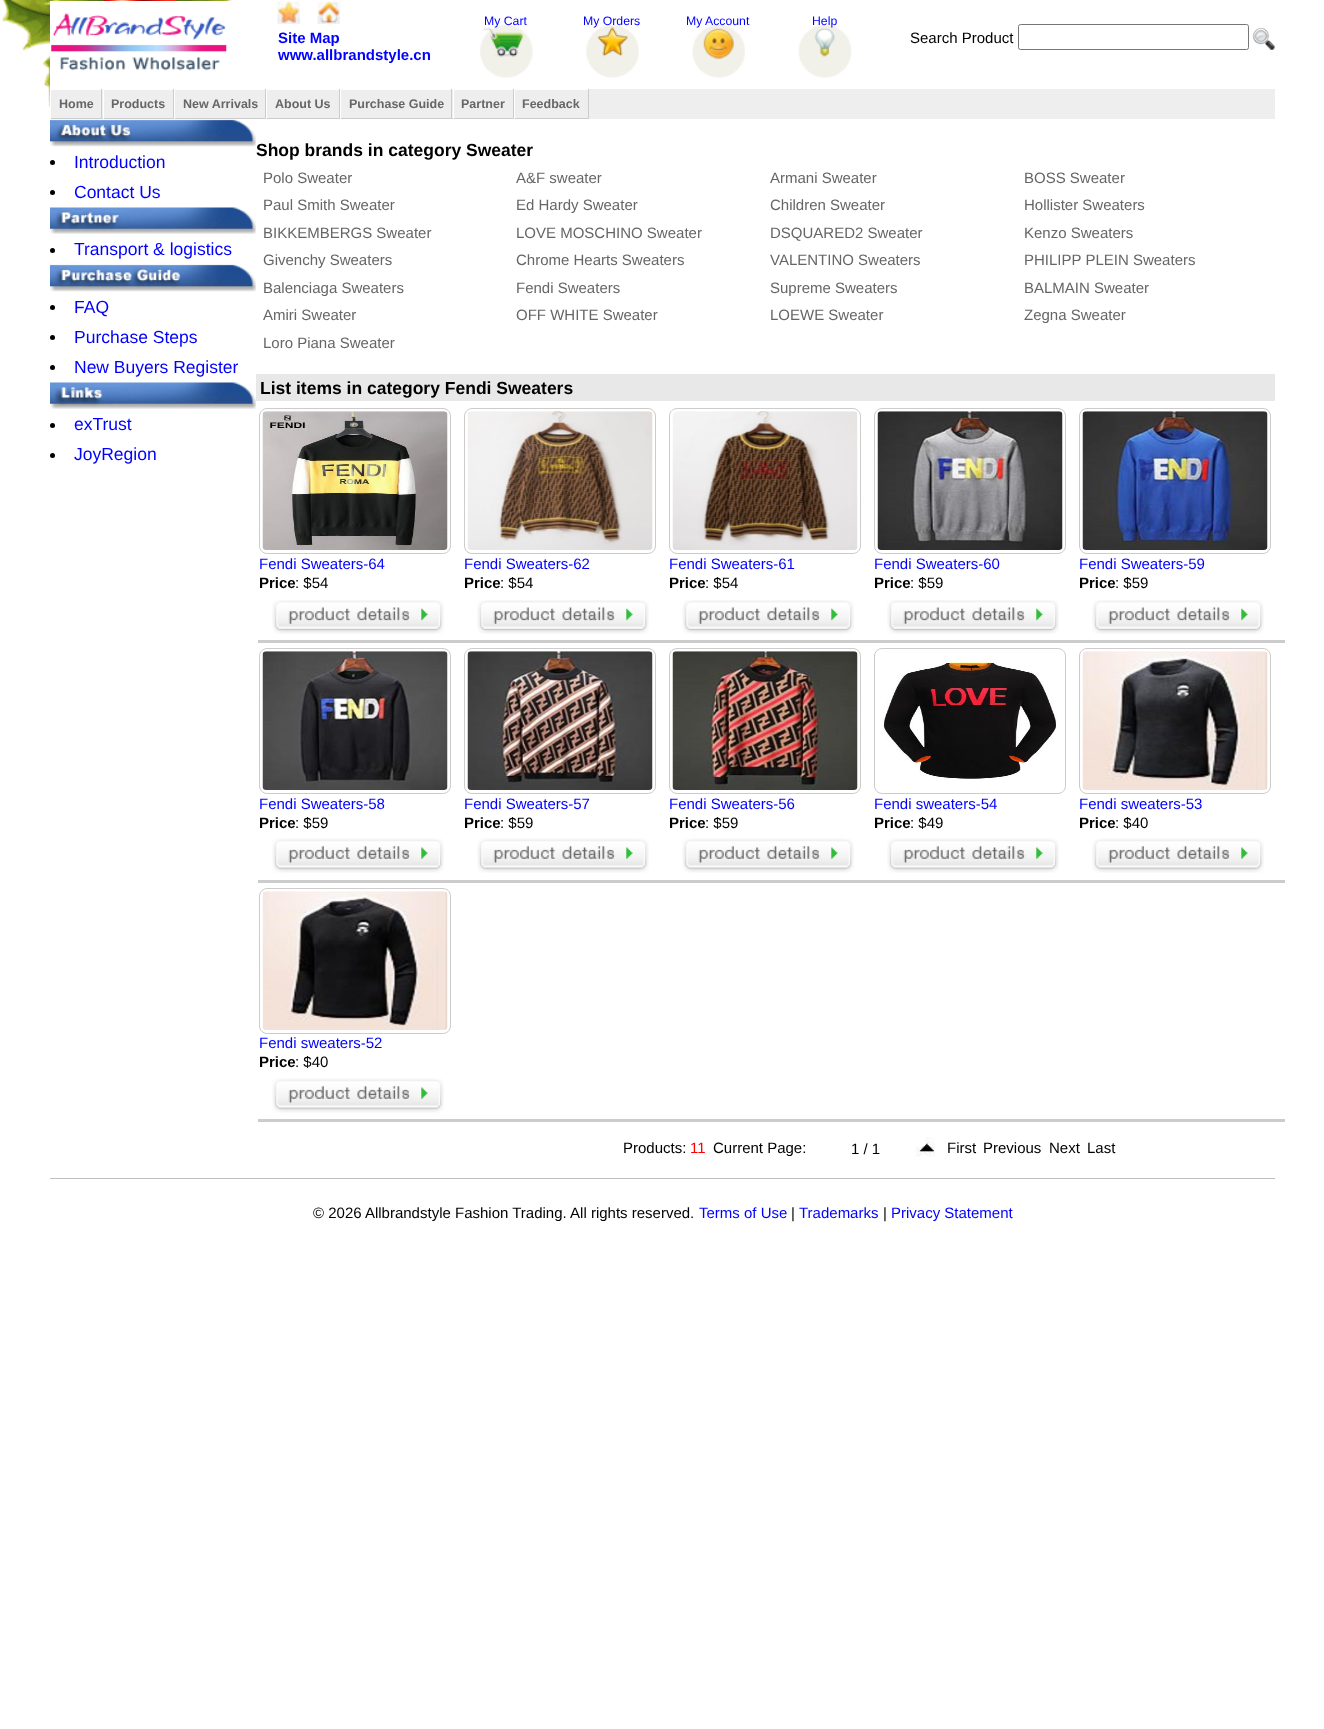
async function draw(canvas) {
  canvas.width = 1324
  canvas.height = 1729
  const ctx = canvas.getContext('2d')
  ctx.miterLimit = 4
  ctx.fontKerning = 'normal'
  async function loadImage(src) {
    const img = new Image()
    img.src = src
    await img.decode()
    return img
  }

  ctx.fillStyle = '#fff'
  ctx.fillRect(0, 0, 1324, 1729)
  ctx.drawImage(await loadImage('image0.png'), 2, 0, 243, 171)
  ctx.fillRect(50, 1, 195, 88)
  ctx.drawImage(await loadImage('image1.png'), 51, 13, 176, 58)
  ctx.drawImage(await loadImage('image2.png'), 480, 25, 53, 53)
  ctx.font = '12.25px Liberation Sans'
  ctx.fillStyle = '#00f'
  ctx.fillText('My Cart', 484, 25)
  ctx.drawImage(await loadImage('image3.png'), 586, 25, 53, 53)
  ctx.fillText('My Orders', 583, 25)
  ctx.drawImage(await loadImage('image4.png'), 692, 25, 53, 53)
  ctx.fillText('My Account', 686, 25)
  ctx.drawImage(await loadImage('image5.png'), 798, 25, 54, 53)
  ctx.fillText('Help', 812, 25)
  ctx.drawImage(await loadImage('image6.png'), 277, 1, 23, 23)
  ctx.drawImage(await loadImage('image7.png'), 317, 1, 23, 23)
  ctx.font = 'bold 15px Liberation Sans'
  ctx.fillText('Site Map', 278, 43)
  ctx.fillText('www.allbrandstyle.cn', 278, 60)
  ctx.font = '15px Liberation Sans'
  ctx.fillStyle = '#000'
  ctx.fillText('Search Product', 910, 43)
  ctx.beginPath()
  ctx.roundRect(1018.5, 24.5, 230, 25, 2)
  ctx.strokeStyle = '#767676'
  ctx.stroke()
  ctx.drawImage(await loadImage('image8.png'), 1252, 27, 23, 23)
  ctx.fillStyle = '#eee'
  ctx.fillRect(267, 89, 1008, 30)
  ctx.fillRect(51, 90, 52, 28)
  ctx.fillStyle = '#fff'
  ctx.fillRect(50, 89, 133, 1)
  ctx.fillStyle = '#ccc'
  ctx.fillRect(101, 89, 1, 30)
  ctx.fillRect(50, 118, 53, 1)
  ctx.fillStyle = '#fff'
  ctx.fillRect(50, 89, 1, 30)
  ctx.font = 'bold 12.5px Liberation Sans'
  ctx.fillStyle = '#666'
  ctx.fillText('Home', 59, 108)
  ctx.fillStyle = '#eee'
  ctx.fillRect(104, 90, 69, 28)
  ctx.fillStyle = '#ccc'
  ctx.fillRect(173, 89, 1, 30)
  ctx.fillRect(103, 118, 71, 1)
  ctx.fillStyle = '#fff'
  ctx.fillRect(103, 89, 1, 30)
  ctx.fillStyle = '#666'
  ctx.fillText('Products', 111, 108)
  ctx.fillStyle = '#eee'
  ctx.fillRect(175, 90, 90, 28)
  ctx.fillStyle = '#ccc'
  ctx.fillRect(265, 89, 1, 30)
  ctx.fillRect(174, 118, 92, 1)
  ctx.fillStyle = '#fff'
  ctx.fillRect(174, 89, 1, 30)
  ctx.fillStyle = '#666'
  ctx.fillText('New Arrivals', 183, 108)
  ctx.fillStyle = '#fff'
  ctx.fillRect(266, 89, 323, 1)
  ctx.fillStyle = '#ccc'
  ctx.fillRect(339, 89, 1, 30)
  ctx.fillRect(266, 118, 74, 1)
  ctx.fillStyle = '#fff'
  ctx.fillRect(266, 118, 1, 1)
  ctx.fillStyle = '#666'
  ctx.fillText('About Us', 275, 108)
  ctx.fillStyle = '#ccc'
  ctx.fillRect(451, 89, 1, 30)
  ctx.fillRect(340, 118, 113, 1)
  ctx.fillStyle = '#fff'
  ctx.fillRect(340, 89, 1, 30)
  ctx.fillStyle = '#666'
  ctx.fillText('Purchase Guide', 349, 108)
  ctx.fillStyle = '#ccc'
  ctx.fillRect(513, 89, 1, 30)
  ctx.fillRect(453, 118, 61, 1)
  ctx.fillStyle = '#fff'
  ctx.fillRect(453, 89, 1, 30)
  ctx.fillStyle = '#666'
  ctx.fillText('Partner', 461, 108)
  ctx.fillStyle = '#ccc'
  ctx.fillRect(588, 89, 1, 30)
  ctx.fillRect(514, 118, 75, 1)
  ctx.fillStyle = '#fff'
  ctx.fillRect(514, 89, 1, 30)
  ctx.fillStyle = '#666'
  ctx.fillText('Feedback', 522, 108)
  ctx.fillStyle = '#fff'
  ctx.fillRect(60, 146, 52, 25)
  ctx.drawImage(await loadImage('image9.png'), 50, 119, 206, 28)
  ctx.fillStyle = '#000'
  ctx.beginPath()
  ctx.arc(52.5, 162.5, 2.5, 0, 2 * Math.PI)
  ctx.fill()
  ctx.font = '17.5px Liberation Sans'
  ctx.fillStyle = '#00f'
  ctx.fillText('Introduction', 74, 168)
  ctx.fillStyle = '#000'
  ctx.beginPath()
  ctx.arc(52.5, 192.5, 2.5, 0, 2 * Math.PI)
  ctx.fill()
  ctx.fillStyle = '#00f'
  ctx.fillText('Contact Us', 74, 198)
  ctx.drawImage(await loadImage('image10.png'), 50, 207, 206, 27)
  ctx.fillStyle = '#000'
  ctx.beginPath()
  ctx.arc(52.5, 250.5, 2.5, 0, 2 * Math.PI)
  ctx.fill()
  ctx.fillStyle = '#00f'
  ctx.fillText('Transport & logistics', 74, 255)
  ctx.drawImage(await loadImage('image11.png'), 50, 264, 206, 28)
  ctx.fillStyle = '#000'
  ctx.beginPath()
  ctx.arc(52.5, 307.5, 2.5, 0, 2 * Math.PI)
  ctx.fill()
  ctx.fillStyle = '#00f'
  ctx.fillText('FAQ', 74, 313)
  ctx.fillStyle = '#000'
  ctx.beginPath()
  ctx.arc(52.5, 337.5, 2.5, 0, 2 * Math.PI)
  ctx.fill()
  ctx.fillStyle = '#00f'
  ctx.fillText('Purchase Steps', 74, 343)
  ctx.fillStyle = '#000'
  ctx.beginPath()
  ctx.arc(52.5, 367.5, 2.5, 0, 2 * Math.PI)
  ctx.fill()
  ctx.fillStyle = '#00f'
  ctx.fillText('New Buyers Register', 74, 373)
  ctx.drawImage(await loadImage('image12.png'), 50, 382, 206, 27)
  ctx.fillStyle = '#000'
  ctx.beginPath()
  ctx.arc(52.5, 425.5, 2.5, 0, 2 * Math.PI)
  ctx.fill()
  ctx.fillStyle = '#00f'
  ctx.fillText('exTrust', 74, 430)
  ctx.fillStyle = '#000'
  ctx.beginPath()
  ctx.arc(52.5, 455.5, 2.5, 0, 2 * Math.PI)
  ctx.fill()
  ctx.fillStyle = '#00f'
  ctx.fillText('JoyRegion', 74, 460)
  ctx.font = 'bold 17.5px Liberation Sans'
  ctx.fillStyle = '#000'
  ctx.fillText('Shop brands in category Sweater', 256, 156)
  ctx.font = '15px Liberation Sans'
  ctx.fillStyle = '#666'
  ctx.fillText('Polo Sweater', 263, 183)
  ctx.fillText('A&F sweater', 516, 183)
  ctx.fillText('Armani Sweater', 770, 183)
  ctx.fillText('BOSS Sweater', 1024, 183)
  ctx.fillText('Paul Smith Sweater', 263, 210)
  ctx.fillText('Ed Hardy Sweater', 516, 210)
  ctx.fillText('Children Sweater', 770, 210)
  ctx.fillText('Hollister Sweaters', 1024, 210)
  ctx.fillText('BIKKEMBERGS Sweater', 263, 238)
  ctx.fillText('LOVE MOSCHINO Sweater', 516, 238)
  ctx.fillText('DSQUARED2 Sweater', 770, 238)
  ctx.fillText('Kenzo Sweaters', 1024, 238)
  ctx.fillText('Givenchy Sweaters', 263, 265)
  ctx.fillText('Chrome Hearts Sweaters', 516, 265)
  ctx.fillText('VALENTINO Sweaters', 770, 265)
  ctx.fillText('PHILIPP PLEIN Sweaters', 1024, 265)
  ctx.fillText('Balenciaga Sweaters', 263, 293)
  ctx.fillText('Fendi Sweaters', 516, 293)
  ctx.fillText('Supreme Sweaters', 770, 293)
  ctx.fillText('BALMAIN Sweater', 1024, 293)
  ctx.fillText('Amiri Sweater', 263, 320)
  ctx.fillText('OFF WHITE Sweater', 516, 320)
  ctx.fillText('LOEWE Sweater', 770, 320)
  ctx.fillText('Zegna Sweater', 1024, 320)
  ctx.fillText('Loro Piana Sweater', 263, 348)
  ctx.fillStyle = '#e8e8e8'
  ctx.fillRect(256, 374, 1019, 27)
  ctx.font = 'bold 17.5px Liberation Sans'
  ctx.fillStyle = '#000'
  ctx.fillText('List items in category Fendi Sweaters', 260, 394)
  ctx.fillStyle = '#ccc'
  ctx.fillRect(258, 640, 1027, 3)
  ctx.beginPath()
  ctx.roundRect(259.5, 408.5, 191, 145, 7.5)
  ctx.strokeStyle = '#ccc'
  ctx.stroke()
  ctx.drawImage(await loadImage('image13.png'), 262, 411, 186, 139)
  ctx.font = '15px Liberation Sans'
  ctx.fillStyle = '#00f'
  ctx.fillText('Fendi Sweaters-64', 259, 569)
  ctx.font = 'bold 15px Liberation Sans'
  ctx.fillStyle = '#000'
  ctx.fillText('Price', 259, 588)
  ctx.font = '15px Liberation Sans'
  ctx.fillText(': $54', 295, 588)
  ctx.drawImage(await loadImage('image14.png'), 272, 600, 172, 34)
  ctx.beginPath()
  ctx.roundRect(464.5, 408.5, 191, 145, 7.5)
  ctx.stroke()
  ctx.drawImage(await loadImage('image15.png'), 467, 411, 186, 139)
  ctx.fillStyle = '#00f'
  ctx.fillText('Fendi Sweaters-62', 464, 569)
  ctx.font = 'bold 15px Liberation Sans'
  ctx.fillStyle = '#000'
  ctx.fillText('Price', 464, 588)
  ctx.font = '15px Liberation Sans'
  ctx.fillText(': $54', 500, 588)
  ctx.drawImage(await loadImage('image16.png'), 477, 600, 172, 34)
  ctx.beginPath()
  ctx.roundRect(669.5, 408.5, 191, 145, 7.5)
  ctx.stroke()
  ctx.drawImage(await loadImage('image17.png'), 672, 411, 186, 139)
  ctx.fillStyle = '#00f'
  ctx.fillText('Fendi Sweaters-61', 669, 569)
  ctx.font = 'bold 15px Liberation Sans'
  ctx.fillStyle = '#000'
  ctx.fillText('Price', 669, 588)
  ctx.font = '15px Liberation Sans'
  ctx.fillText(': $54', 705, 588)
  ctx.drawImage(await loadImage('image18.png'), 682, 600, 172, 34)
  ctx.beginPath()
  ctx.roundRect(874.5, 408.5, 191, 145, 7.5)
  ctx.stroke()
  ctx.drawImage(await loadImage('image19.png'), 877, 411, 186, 139)
  ctx.fillStyle = '#00f'
  ctx.fillText('Fendi Sweaters-60', 874, 569)
  ctx.font = 'bold 15px Liberation Sans'
  ctx.fillStyle = '#000'
  ctx.fillText('Price', 874, 588)
  ctx.font = '15px Liberation Sans'
  ctx.fillText(': $59', 910, 588)
  ctx.drawImage(await loadImage('image20.png'), 887, 600, 172, 34)
  ctx.beginPath()
  ctx.roundRect(1079.5, 408.5, 191, 145, 7.5)
  ctx.stroke()
  ctx.drawImage(await loadImage('image21.png'), 1082, 411, 186, 139)
  ctx.fillStyle = '#00f'
  ctx.fillText('Fendi Sweaters-59', 1079, 569)
  ctx.font = 'bold 15px Liberation Sans'
  ctx.fillStyle = '#000'
  ctx.fillText('Price', 1079, 588)
  ctx.font = '15px Liberation Sans'
  ctx.fillText(': $59', 1115, 588)
  ctx.drawImage(await loadImage('image20.png'), 1092, 600, 172, 34)
  ctx.fillStyle = '#ccc'
  ctx.fillRect(258, 880, 1027, 3)
  ctx.beginPath()
  ctx.roundRect(259.5, 648.5, 191, 145, 7.5)
  ctx.stroke()
  ctx.drawImage(await loadImage('image22.png'), 262, 651, 186, 139)
  ctx.fillStyle = '#00f'
  ctx.fillText('Fendi Sweaters-58', 259, 809)
  ctx.font = 'bold 15px Liberation Sans'
  ctx.fillStyle = '#000'
  ctx.fillText('Price', 259, 828)
  ctx.font = '15px Liberation Sans'
  ctx.fillText(': $59', 295, 828)
  ctx.drawImage(await loadImage('image23.png'), 272, 838, 172, 35)
  ctx.beginPath()
  ctx.roundRect(464.5, 648.5, 191, 145, 7.5)
  ctx.stroke()
  ctx.drawImage(await loadImage('image24.png'), 467, 651, 186, 139)
  ctx.fillStyle = '#00f'
  ctx.fillText('Fendi Sweaters-57', 464, 809)
  ctx.font = 'bold 15px Liberation Sans'
  ctx.fillStyle = '#000'
  ctx.fillText('Price', 464, 828)
  ctx.font = '15px Liberation Sans'
  ctx.fillText(': $59', 500, 828)
  ctx.drawImage(await loadImage('image25.png'), 477, 838, 172, 35)
  ctx.beginPath()
  ctx.roundRect(669.5, 648.5, 191, 145, 7.5)
  ctx.stroke()
  ctx.drawImage(await loadImage('image26.png'), 672, 651, 186, 139)
  ctx.fillStyle = '#00f'
  ctx.fillText('Fendi Sweaters-56', 669, 809)
  ctx.font = 'bold 15px Liberation Sans'
  ctx.fillStyle = '#000'
  ctx.fillText('Price', 669, 828)
  ctx.font = '15px Liberation Sans'
  ctx.fillText(': $59', 705, 828)
  ctx.drawImage(await loadImage('image27.png'), 682, 838, 172, 35)
  ctx.beginPath()
  ctx.roundRect(874.5, 648.5, 191, 145, 7.5)
  ctx.stroke()
  ctx.drawImage(await loadImage('image28.png'), 882, 662, 175, 117)
  ctx.fillStyle = '#00f'
  ctx.fillText('Fendi sweaters-54', 874, 809)
  ctx.font = 'bold 15px Liberation Sans'
  ctx.fillStyle = '#000'
  ctx.fillText('Price', 874, 828)
  ctx.font = '15px Liberation Sans'
  ctx.fillText(': $49', 910, 828)
  ctx.drawImage(await loadImage('image29.png'), 887, 838, 172, 35)
  ctx.beginPath()
  ctx.roundRect(1079.5, 648.5, 191, 145, 7.5)
  ctx.stroke()
  ctx.drawImage(await loadImage('image30.png'), 1082, 651, 186, 139)
  ctx.fillStyle = '#00f'
  ctx.fillText('Fendi sweaters-53', 1079, 809)
  ctx.font = 'bold 15px Liberation Sans'
  ctx.fillStyle = '#000'
  ctx.fillText('Price', 1079, 828)
  ctx.font = '15px Liberation Sans'
  ctx.fillText(': $40', 1115, 828)
  ctx.drawImage(await loadImage('image29.png'), 1092, 838, 172, 35)
  ctx.fillStyle = '#ccc'
  ctx.fillRect(258, 1119, 1027, 3)
  ctx.beginPath()
  ctx.roundRect(259.5, 888.5, 191, 145, 7.5)
  ctx.stroke()
  ctx.drawImage(await loadImage('image31.png'), 262, 891, 186, 139)
  ctx.fillStyle = '#00f'
  ctx.fillText('Fendi sweaters-52', 259, 1048)
  ctx.font = 'bold 15px Liberation Sans'
  ctx.fillStyle = '#000'
  ctx.fillText('Price', 259, 1067)
  ctx.font = '15px Liberation Sans'
  ctx.fillText(': $40', 295, 1067)
  ctx.drawImage(await loadImage('image23.png'), 272, 1078, 172, 35)
  ctx.fillText('Products:', 623, 1153)
  ctx.fillStyle = '#f00'
  ctx.fillText('11', 690, 1153)
  ctx.fillStyle = '#000'
  ctx.fillText('Current Page:', 713, 1153)
  ctx.fillText('1 / 1', 851, 1154)
  ctx.drawImage(await loadImage('image32.png'), 915, 1137, 20, 20)
  ctx.fillText('First', 947, 1153)
  ctx.fillText('Previous', 983, 1153)
  ctx.fillText('Next', 1049, 1153)
  ctx.fillText('Last', 1087, 1153)
  ctx.fillStyle = '#c0c0c0'
  ctx.fillRect(50, 1178, 1225, 1)
  ctx.fillStyle = '#000'
  ctx.fillText('© 2026 Allbrandstyle Fashion Trading. All rights reserved.', 313, 1218)
  ctx.fillStyle = '#00f'
  ctx.fillText('Terms of Use', 699, 1218)
  ctx.fillStyle = '#000'
  ctx.fillText('|', 791, 1218)
  ctx.fillStyle = '#00f'
  ctx.fillText('Trademarks', 799, 1218)
  ctx.fillStyle = '#000'
  ctx.fillText('|', 883, 1218)
  ctx.fillStyle = '#00f'
  ctx.fillText('Privacy Statement', 891, 1218)
}

draw(document.querySelector('canvas'))
